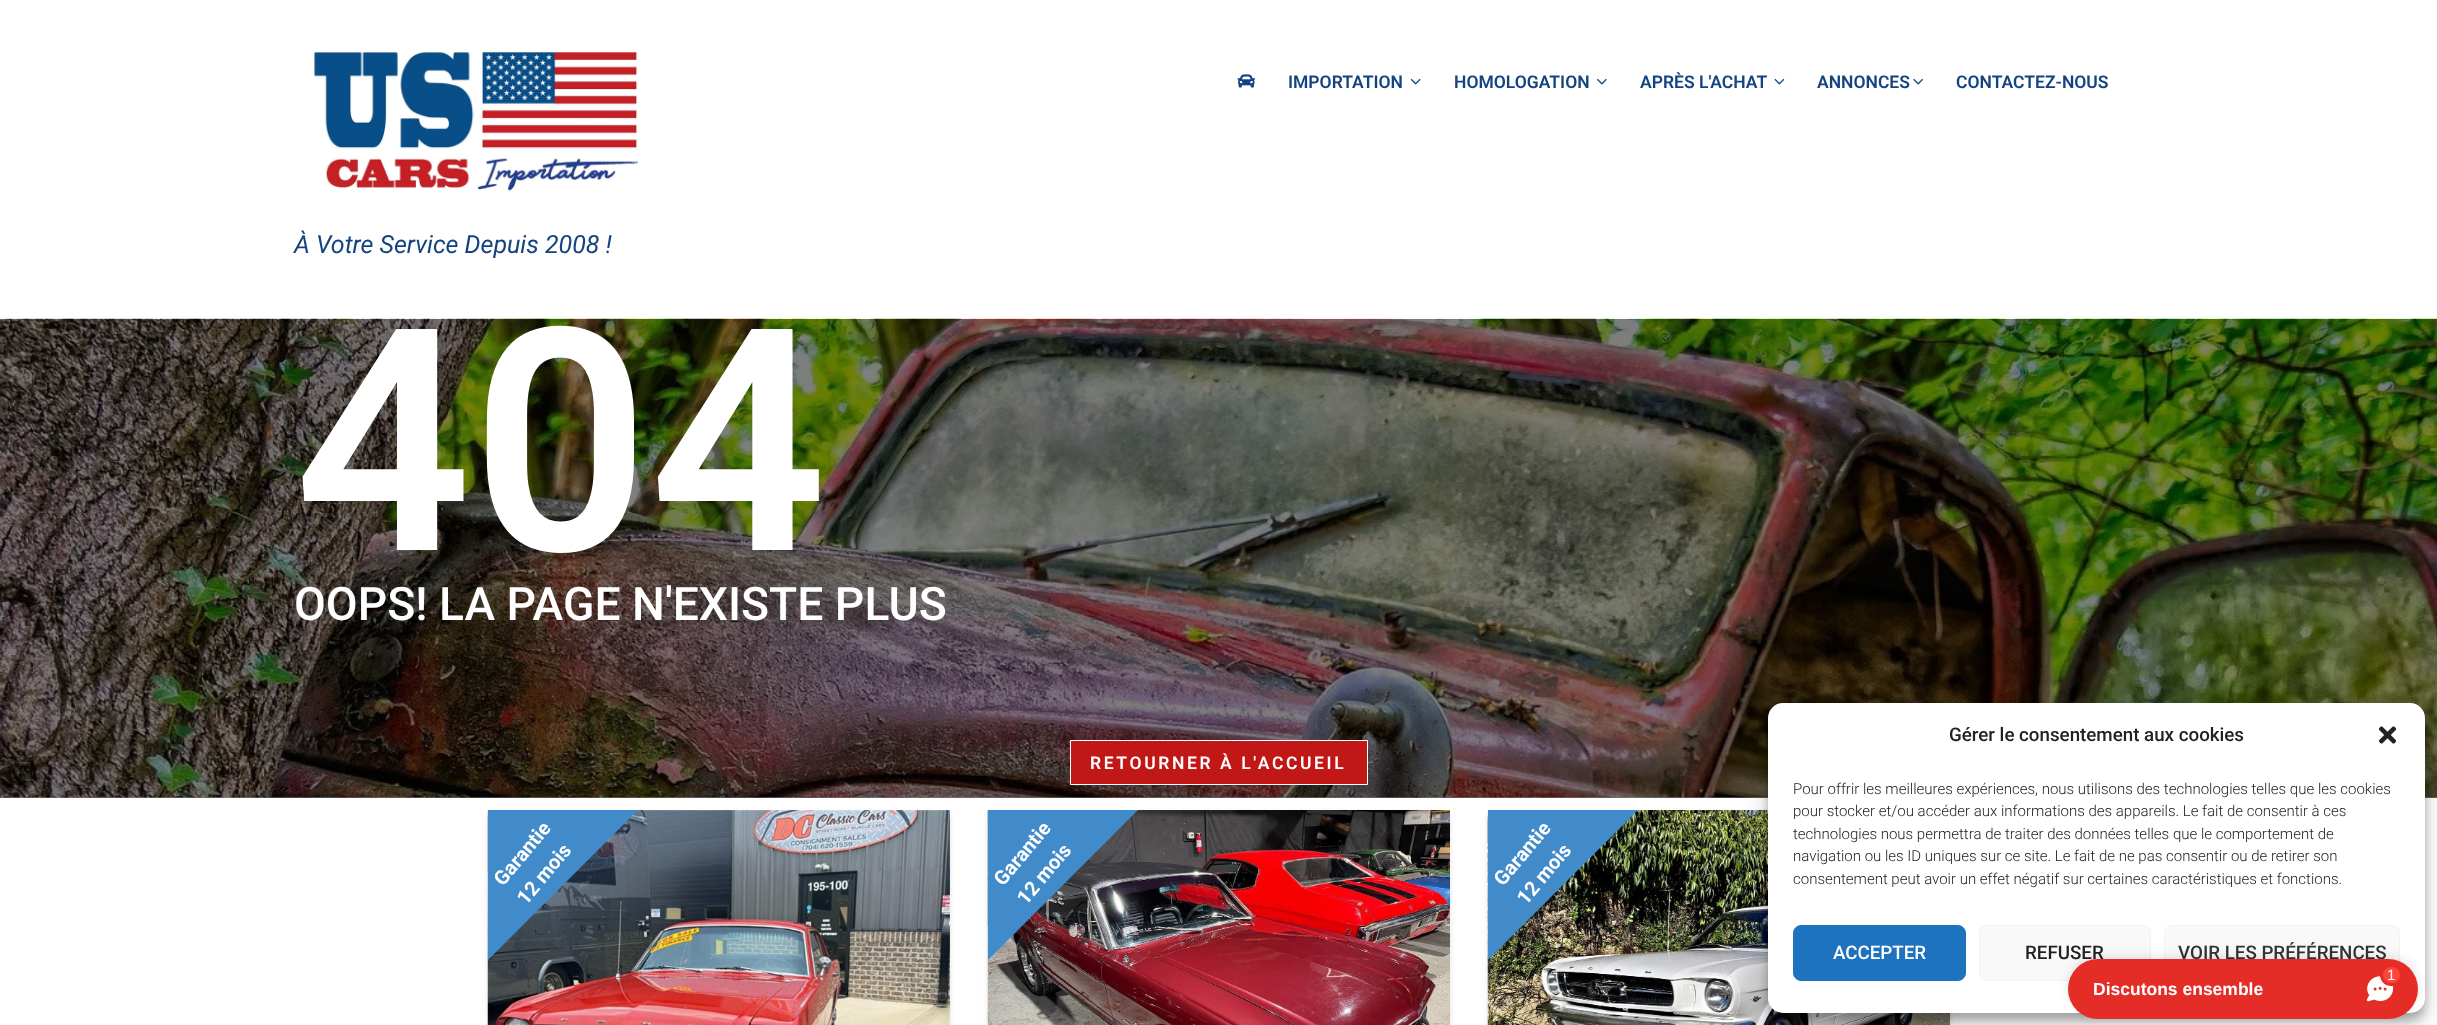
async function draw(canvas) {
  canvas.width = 2437
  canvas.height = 1025
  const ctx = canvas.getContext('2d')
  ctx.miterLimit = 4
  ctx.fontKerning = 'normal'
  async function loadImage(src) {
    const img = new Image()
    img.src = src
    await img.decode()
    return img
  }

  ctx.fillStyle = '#fff'
  ctx.fillRect(0, 0, 2437, 1025)
  ctx.fillStyle = '#808080'
  ctx.fillRect(0, 797, 2437, 1)
  ctx.drawImage(await loadImage('image0.png'), 1237, 74, 18, 14)
  ctx.font = '600 17.5px Roboto'
  ctx.fillStyle = '#144380'
  ctx.fillText('IMPORTATION', 1288, 88)
  ctx.drawImage(await loadImage('image1.png'), 1410, 78, 11, 7)
  ctx.fillText('HOMOLOGATION', 1454, 88)
  ctx.drawImage(await loadImage('image2.png'), 1597, 78, 10, 7)
  ctx.fillText('APRÈS L\'ACHAT', 1640, 88)
  ctx.drawImage(await loadImage('image3.png'), 1774, 78, 11, 7)
  ctx.fillText('ANNONCES', 1817, 88)
  ctx.drawImage(await loadImage('image4.png'), 1913, 78, 10, 7)
  ctx.fillText('CONTACTEZ-NOUS', 1956, 88)
  ctx.drawImage(await loadImage('image5.png'), 313, 51, 326, 140)
  ctx.font = 'italic 25px Roboto'
  ctx.fillText('À Votre Service Depuis 2008 !', 294, 253)
  ctx.drawImage(await loadImage('image6.png'), 0, 318, 2437, 480)
  ctx.font = '600 311px Roboto'
  ctx.fillStyle = '#fff'
  ctx.fillText('404', 294, 550)
  ctx.font = '500 46.25px Roboto'
  ctx.fillText('OOPS! LA PAGE N\'EXISTE PLUS', 294, 620)
  ctx.fillStyle = '#c21717'
  ctx.beginPath()
  ctx.rect(1070.5, 740.5, 297, 44)
  ctx.fill()
  ctx.strokeStyle = '#fff'
  ctx.stroke()
  ctx.letterSpacing = '2.6px'
  ctx.font = '600 17.5px Roboto'
  ctx.fillStyle = '#fff'
  ctx.fillText('RETOURNER À L\'ACCUEIL', 1090, 769)
  ctx.fillStyle = '#00000029'
  ctx.filter = 'blur(3px)'
  ctx.beginPath()
  ctx.rect(489, 814, 460, 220)
  ctx.fill()
  ctx.filter = 'none'
  ctx.drawImage(await loadImage('image7.png'), 487, 810, 463, 215)
  ctx.fillStyle = '#428bca'
  ctx.beginPath()
  ctx.moveTo(488, 810)
  ctx.lineTo(638, 810)
  ctx.lineTo(488, 960)
  ctx.closePath()
  ctx.fill()
  ctx.letterSpacing = '0px'
  ctx.font = 'bold 20px Roboto'
  ctx.fillStyle = '#fff'
  ctx.save()
  ctx.translate(503, 887)
  ctx.rotate(-50 * Math.PI / 180)
  ctx.fillText('Garantie', 0, 0)
  ctx.restore()
  ctx.save()
  ctx.translate(526, 906)
  ctx.rotate(-50 * Math.PI / 180)
  ctx.fillText('12 mois', 0, 0)
  ctx.restore()
  ctx.fillStyle = '#00000029'
  ctx.filter = 'blur(3px)'
  ctx.beginPath()
  ctx.rect(989, 814, 460, 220)
  ctx.fill()
  ctx.filter = 'none'
  ctx.drawImage(await loadImage('image8.png'), 987, 810, 463, 215)
  ctx.fillStyle = '#428bca'
  ctx.beginPath()
  ctx.moveTo(988, 810)
  ctx.lineTo(1138, 810)
  ctx.lineTo(988, 960)
  ctx.closePath()
  ctx.fill()
  ctx.fillStyle = '#fff'
  ctx.save()
  ctx.translate(1003, 887)
  ctx.rotate(-50 * Math.PI / 180)
  ctx.fillText('Garantie', 0, 0)
  ctx.restore()
  ctx.save()
  ctx.translate(1026, 906)
  ctx.rotate(-50 * Math.PI / 180)
  ctx.fillText('12 mois', 0, 0)
  ctx.restore()
  ctx.fillStyle = '#00000029'
  ctx.filter = 'blur(3px)'
  ctx.beginPath()
  ctx.rect(1489, 814, 460, 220)
  ctx.fill()
  ctx.filter = 'none'
  ctx.drawImage(await loadImage('image9.png'), 1487, 810, 463, 215)
  ctx.fillStyle = '#428bca'
  ctx.beginPath()
  ctx.moveTo(1488, 810)
  ctx.lineTo(1638, 810)
  ctx.lineTo(1488, 960)
  ctx.closePath()
  ctx.fill()
  ctx.fillStyle = '#fff'
  ctx.save()
  ctx.translate(1503, 887)
  ctx.rotate(-50 * Math.PI / 180)
  ctx.fillText('Garantie', 0, 0)
  ctx.restore()
  ctx.save()
  ctx.translate(1526, 906)
  ctx.rotate(-50 * Math.PI / 180)
  ctx.fillText('12 mois', 0, 0)
  ctx.restore()
  ctx.fillStyle = '#0000003b'
  ctx.filter = 'blur(4px)'
  ctx.beginPath()
  ctx.roundRect(1768, 710, 657, 310, 15)
  ctx.fill()
  ctx.filter = 'none'
  ctx.fillStyle = '#00000030'
  ctx.filter = 'blur(12.5px)'
  ctx.beginPath()
  ctx.roundRect(1768, 715, 657, 310, 15)
  ctx.fill()
  ctx.filter = 'none'
  ctx.fillStyle = '#fff'
  ctx.beginPath()
  ctx.roundRect(1768, 703, 657, 310, 15)
  ctx.fill()
  ctx.font = '500 18.75px Roboto'
  ctx.fillStyle = '#222'
  ctx.fillText('Gérer le consentement aux cookies', 1949, 741)
  ctx.drawImage(await loadImage('image10.png'), 2378, 726, 19, 18)
  ctx.font = '300 15px Roboto'
  ctx.fillText('Pour offrir les meilleures expériences, nous utilisons des technologies telles que les cookies', 1793, 794)
  ctx.fillText('pour stocker et/ou accéder aux informations des appareils. Le fait de consentir à ces', 1793, 816)
  ctx.fillText('technologies nous permettra de traiter des données telles que le comportement de', 1793, 839)
  ctx.fillText('navigation ou les ID uniques sur ce site. Le fait de ne pas consentir ou de retirer son', 1793, 861)
  ctx.fillText('consentement peut avoir un effet négatif sur certaines caractéristiques et fonctions.', 1793, 884)
  ctx.fillStyle = '#1e73be'
  ctx.beginPath()
  ctx.roundRect(1793.5, 925.5, 172, 55, 7.5)
  ctx.fill()
  ctx.strokeStyle = '#1e73be'
  ctx.stroke()
  ctx.font = '500 18.75px Roboto'
  ctx.fillStyle = '#fff'
  ctx.fillText('ACCEPTER', 1833, 959)
  ctx.fillStyle = '#f9f9f9'
  ctx.beginPath()
  ctx.roundRect(1979.5, 925.5, 171, 55, 7.5)
  ctx.fill()
  ctx.strokeStyle = '#f2f2f2'
  ctx.stroke()
  ctx.fillStyle = '#222'
  ctx.fillText('REFUSER', 2025, 959)
  ctx.fillStyle = '#f9f9f9'
  ctx.beginPath()
  ctx.roundRect(2164.5, 925.5, 235, 55, 7.5)
  ctx.fill()
  ctx.stroke()
  ctx.fillStyle = '#333'
  ctx.fillText('VOIR LES PRÉFÉRENCES', 2178, 959)
  ctx.fillStyle = '#0000001a'
  ctx.filter = 'blur(5px)'
  ctx.beginPath()
  ctx.roundRect(2068, 956, 350, 60, 30)
  ctx.fill()
  ctx.filter = 'none'
  ctx.fillStyle = '#e52d27'
  ctx.beginPath()
  ctx.roundRect(2068, 959, 350, 60, 30)
  ctx.fill()
  ctx.drawImage(await loadImage('image11.png'), 2366, 976, 28, 26)
  ctx.fillStyle = '#ff443a'
  ctx.beginPath()
  ctx.roundRect(2381.5, 965.5, 20, 19, 9.5)
  ctx.fill()
  ctx.strokeStyle = '#e52d27'
  ctx.lineWidth = 3
  ctx.stroke()
  ctx.font = '15px Liberation Sans'
  ctx.fillStyle = '#fff'
  ctx.fillText('1', 2387, 980)
  ctx.font = 'bold 17.5px Liberation Sans'
  ctx.fillText('Discutons ensemble', 2093, 995)
}

draw(document.querySelector('canvas'))
